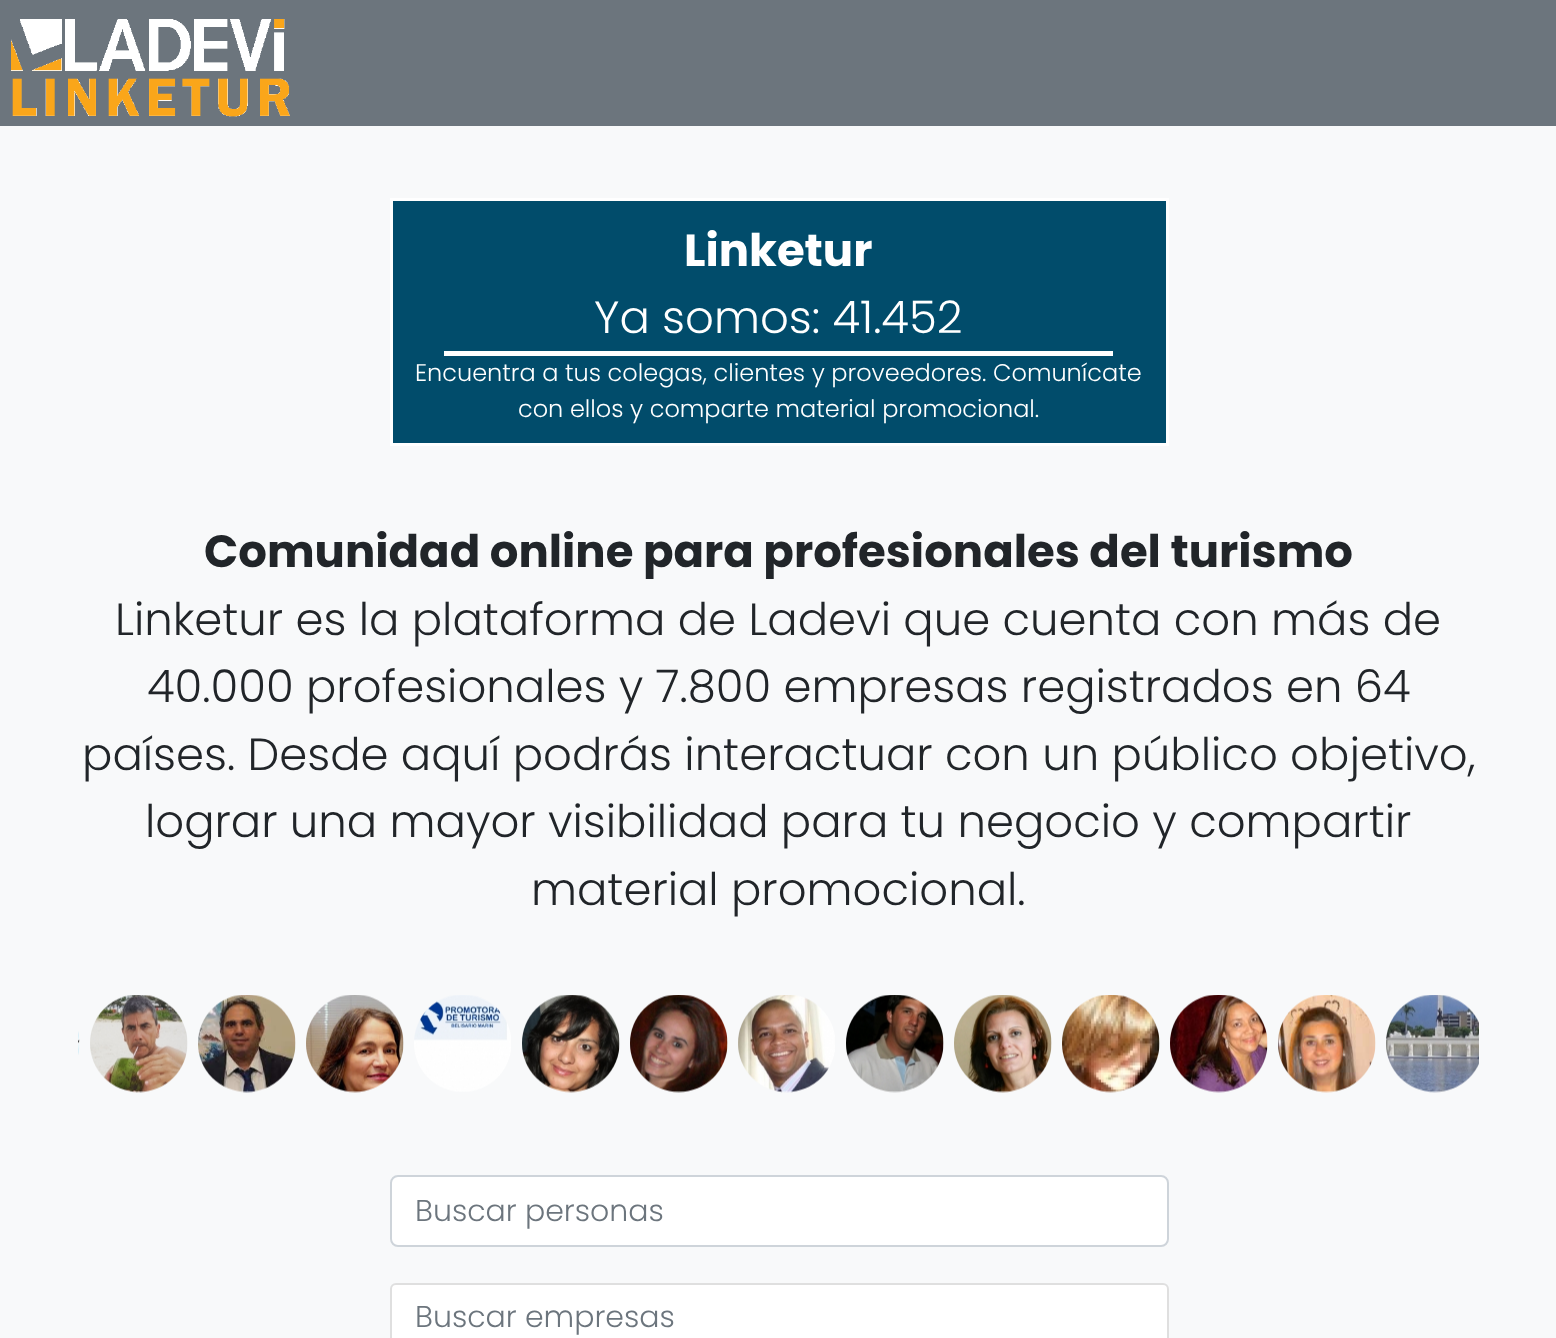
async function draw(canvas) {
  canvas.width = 1556
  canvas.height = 1338
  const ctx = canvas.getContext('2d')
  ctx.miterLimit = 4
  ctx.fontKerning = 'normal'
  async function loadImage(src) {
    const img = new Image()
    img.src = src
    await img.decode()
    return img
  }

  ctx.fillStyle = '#f8f9fa'
  ctx.fillRect(0, 0, 1556, 1338)
  ctx.fillStyle = '#6c757d'
  ctx.fillRect(0, 0, 1556, 126)
  ctx.drawImage(await loadImage('image0.png'), 11, 19, 279, 98)
  ctx.fillStyle = '#014c6b'
  ctx.beginPath()
  ctx.rect(391.5, 199.5, 776, 245)
  ctx.fill()
  ctx.strokeStyle = '#fff'
  ctx.lineWidth = 3
  ctx.stroke()
  ctx.font = 'bold 45px Poppins'
  ctx.fillStyle = '#fff'
  ctx.fillText('Linketur', 684, 266)
  ctx.font = '300 45px Poppins'
  ctx.fillText('Ya somos: 41.452', 594, 333)
  ctx.fillRect(444, 351, 669, 5)
  ctx.font = '300 24px Poppins'
  ctx.fillText('Encuentra a tus colegas, clientes y proveedores. Comunícate', 415, 381)
  ctx.fillText('con ellos y comparte material promocional.', 518, 417)
  ctx.font = 'bold 45px Poppins'
  ctx.fillStyle = '#212529'
  ctx.fillText('Comunidad online para profesionales del turismo', 204, 567)
  ctx.font = '300 45px Poppins'
  ctx.fillText('Linketur es la plataforma de Ladevi que cuenta con más de', 115, 635)
  ctx.fillText('40.000 profesionales y 7.800 empresas registrados en 64', 147, 702)
  ctx.fillText('países. Desde aquí podrás interactuar con un público objetivo,', 82, 770)
  ctx.fillText('lograr una mayor visibilidad para tu negocio y compartir', 145, 837)
  ctx.fillText('material promocional.', 531, 905)
  ctx.drawImage(await loadImage('image1.png'), 78, 1031, 2, 24)
  ctx.drawImage(await loadImage('image2.png'), 90, 995, 98, 98)
  ctx.drawImage(await loadImage('image3.png'), 198, 995, 98, 98)
  ctx.drawImage(await loadImage('image4.png'), 306, 995, 98, 98)
  ctx.drawImage(await loadImage('image5.png'), 414, 995, 97, 97)
  ctx.drawImage(await loadImage('image6.png'), 522, 995, 98, 98)
  ctx.drawImage(await loadImage('image7.png'), 630, 995, 98, 98)
  ctx.drawImage(await loadImage('image8.png'), 738, 995, 97, 98)
  ctx.drawImage(await loadImage('image9.png'), 846, 995, 98, 98)
  ctx.drawImage(await loadImage('image10.png'), 954, 995, 98, 98)
  ctx.drawImage(await loadImage('image11.png'), 1062, 995, 98, 98)
  ctx.drawImage(await loadImage('image12.png'), 1170, 995, 98, 98)
  ctx.drawImage(await loadImage('image13.png'), 1278, 995, 98, 98)
  ctx.drawImage(await loadImage('image14.png'), 1386, 995, 93, 98)
  ctx.fillStyle = '#fff'
  ctx.beginPath()
  ctx.roundRect(391, 1176, 777, 70, 7)
  ctx.fill()
  ctx.strokeStyle = '#ced4da'
  ctx.lineWidth = 2
  ctx.stroke()
  ctx.font = '300 30px Poppins'
  ctx.fillStyle = '#6c757d'
  ctx.fillText('Buscar personas', 415, 1221)
  ctx.fillStyle = '#fff'
  ctx.beginPath()
  ctx.roundRect(391, 1284, 777, 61, 5)
  ctx.fill()
  ctx.strokeStyle = '#dfdfdf'
  ctx.stroke()
  ctx.fillStyle = '#6c757d'
  ctx.fillText('Buscar empresas', 415, 1327)
}

draw(document.querySelector('canvas'))
